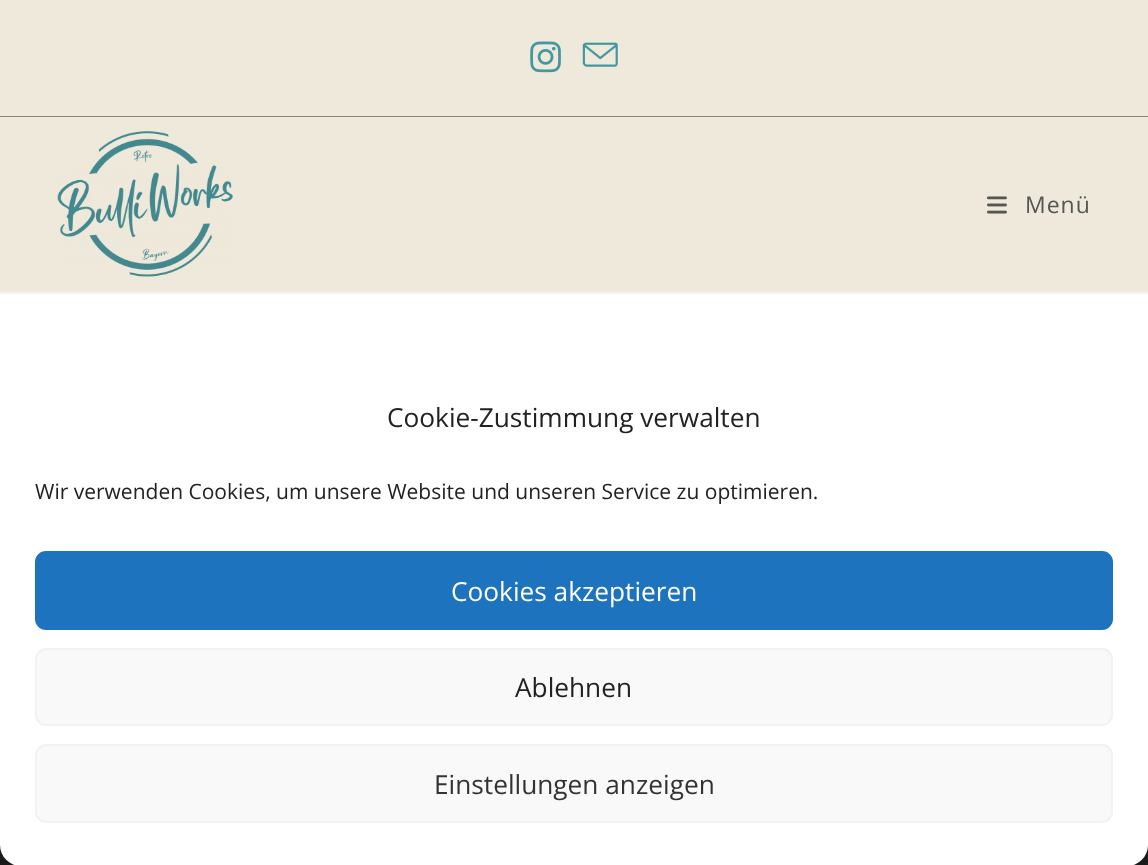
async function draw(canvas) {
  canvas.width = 1148
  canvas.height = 865
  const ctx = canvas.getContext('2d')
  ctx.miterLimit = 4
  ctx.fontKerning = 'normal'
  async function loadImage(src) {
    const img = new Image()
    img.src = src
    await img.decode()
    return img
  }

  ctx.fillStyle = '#fff'
  ctx.fillRect(0, 0, 1148, 865)
  ctx.fillStyle = '#eee9da'
  ctx.fillRect(0, 0, 1148, 116)
  ctx.fillStyle = '#848484'
  ctx.fillRect(0, 116, 1148, 1)
  ctx.drawImage(await loadImage('image0.png'), 530, 41, 31, 32)
  ctx.drawImage(await loadImage('image1.png'), 582, 42, 36, 25)
  ctx.fillStyle = '#eee9da'
  ctx.fillRect(0, 117, 1148, 175)
  ctx.fillStyle = '#f1f1f1'
  ctx.fillRect(0, 292, 1148, 2)
  ctx.drawImage(await loadImage('image2.png'), 57, 131, 176, 146)
  ctx.drawImage(await loadImage('image3.png'), 987, 196, 20, 18)
  ctx.letterSpacing = '1px'
  ctx.font = '23px Open Sans'
  ctx.fillStyle = '#555'
  ctx.fillText('Menü', 1025, 213)
  ctx.fillStyle = '#1b1b1b'
  ctx.fillRect(0, 845, 1148, 20)
  ctx.fillStyle = '#fff'
  ctx.beginPath()
  ctx.roundRect(0, 368, 1148, 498, 21)
  ctx.fill()
  ctx.letterSpacing = '0px'
  ctx.font = '26.25px Open Sans'
  ctx.fillStyle = '#222'
  ctx.fillText('Cookie-Zustimmung verwalten', 387, 427)
  ctx.font = '21px Open Sans'
  ctx.fillText('Wir verwenden Cookies, um unsere Website und unseren Service zu optimieren.', 35, 499)
  ctx.fillStyle = '#1e73be'
  ctx.beginPath()
  ctx.roundRect(36, 552, 1076, 77, 10)
  ctx.fill()
  ctx.strokeStyle = '#1e73be'
  ctx.lineWidth = 2
  ctx.stroke()
  ctx.font = '26.25px Open Sans'
  ctx.fillStyle = '#fff'
  ctx.fillText('Cookies akzeptieren', 451, 601)
  ctx.fillStyle = '#f9f9f9'
  ctx.beginPath()
  ctx.roundRect(36, 649, 1076, 76, 10)
  ctx.fill()
  ctx.strokeStyle = '#f2f2f2'
  ctx.stroke()
  ctx.fillStyle = '#222'
  ctx.fillText('Ablehnen', 515, 697)
  ctx.fillStyle = '#f9f9f9'
  ctx.beginPath()
  ctx.roundRect(36, 745, 1076, 77, 10)
  ctx.fill()
  ctx.stroke()
  ctx.fillStyle = '#333'
  ctx.fillText('Einstellungen anzeigen', 434, 794)
}

draw(document.querySelector('canvas'))
